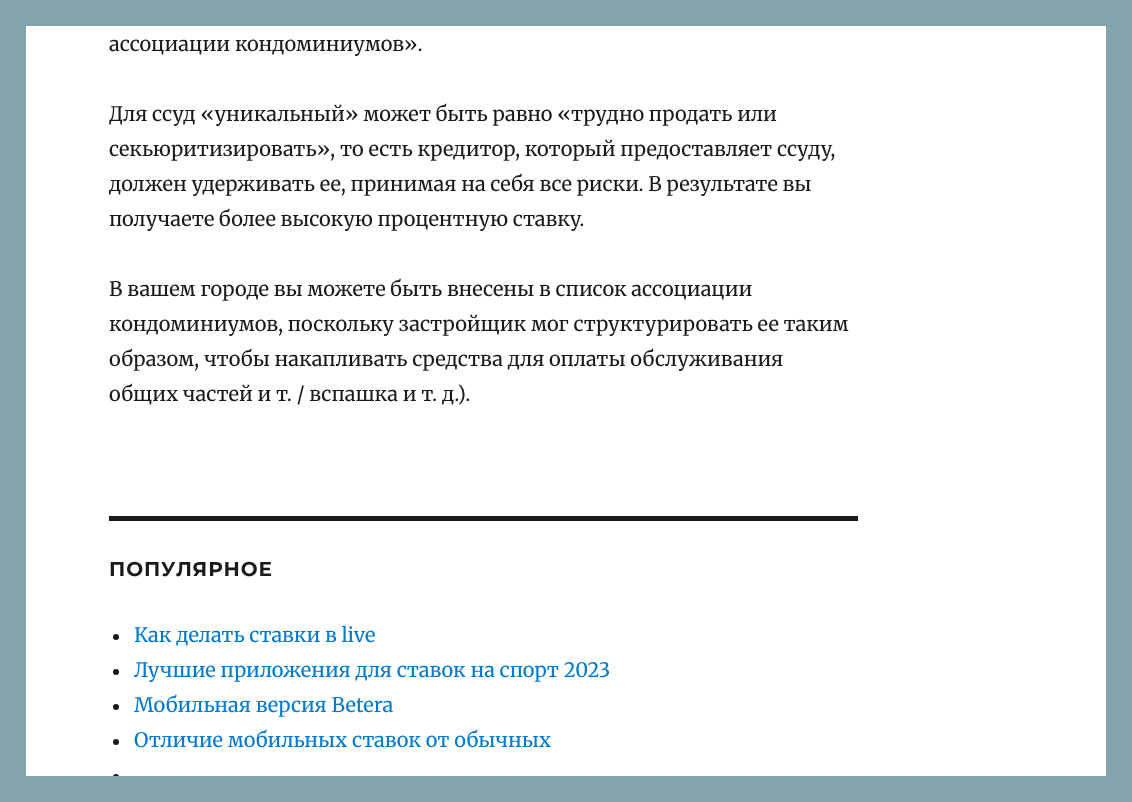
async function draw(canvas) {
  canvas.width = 1132
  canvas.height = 802
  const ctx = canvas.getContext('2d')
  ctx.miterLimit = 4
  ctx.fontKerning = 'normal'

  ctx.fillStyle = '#83a4ad'
  ctx.fillRect(0, 0, 1132, 802)
  ctx.fillStyle = '#fff'
  ctx.fillRect(26, 26, 1080, 750)
  ctx.font = '20px Merriweather'
  ctx.fillStyle = '#1a1a1a'
  ctx.fillText('ассоциации кондоминиумов».', 109, 51)
  ctx.fillText('Для ссуд «уникальный» может быть равно «трудно продать или', 109, 121)
  ctx.fillText('секьюритизировать», то есть кредитор, который предоставляет ссуду,', 109, 156)
  ctx.fillText('должен удерживать ее, принимая на себя все риски. В результате вы', 109, 191)
  ctx.fillText('получаете более высокую процентную ставку.', 109, 226)
  ctx.fillText('В вашем городе вы можете быть внесены в список ассоциации', 109, 296)
  ctx.fillText('кондоминиумов, поскольку застройщик мог структурировать ее таким', 109, 331)
  ctx.fillText('образом, чтобы накапливать средства для оплаты обслуживания', 109, 366)
  ctx.fillText('общих частей и т. / вспашка и т. д.).', 109, 401)
  ctx.fillRect(109, 516, 749, 5)
  ctx.letterSpacing = '1px'
  ctx.font = 'bold 20px Montserrat'
  ctx.fillText('ПОПУЛЯРНОЕ', 109, 576)
  ctx.beginPath()
  ctx.arc(116, 637, 3, 0, 2 * Math.PI)
  ctx.fill()
  ctx.letterSpacing = '0px'
  ctx.font = '20px Merriweather'
  ctx.fillStyle = '#007acc'
  ctx.fillText('Как делать ставки в live', 134, 642)
  ctx.fillStyle = '#1a1a1a'
  ctx.beginPath()
  ctx.arc(116, 672, 3, 0, 2 * Math.PI)
  ctx.fill()
  ctx.fillStyle = '#007acc'
  ctx.fillText('Лучшие приложения для ставок на спорт 2023', 134, 677)
  ctx.fillStyle = '#1a1a1a'
  ctx.beginPath()
  ctx.arc(116, 707, 3, 0, 2 * Math.PI)
  ctx.fill()
  ctx.fillStyle = '#007acc'
  ctx.fillText('Мобильная версия Betera', 134, 712)
  ctx.fillStyle = '#1a1a1a'
  ctx.beginPath()
  ctx.arc(116, 742, 3, 0, 2 * Math.PI)
  ctx.fill()
  ctx.fillStyle = '#007acc'
  ctx.fillText('Отличие мобильных ставок от обычных', 134, 747)
  ctx.fillStyle = '#1a1a1a'
  ctx.beginPath()
  ctx.arc(116, 777, 3, 0, 2 * Math.PI)
  ctx.fill()
  ctx.fillStyle = '#83a4ad'
  ctx.fillRect(113, 776, 6, 4)
}

draw(document.querySelector('canvas'))
